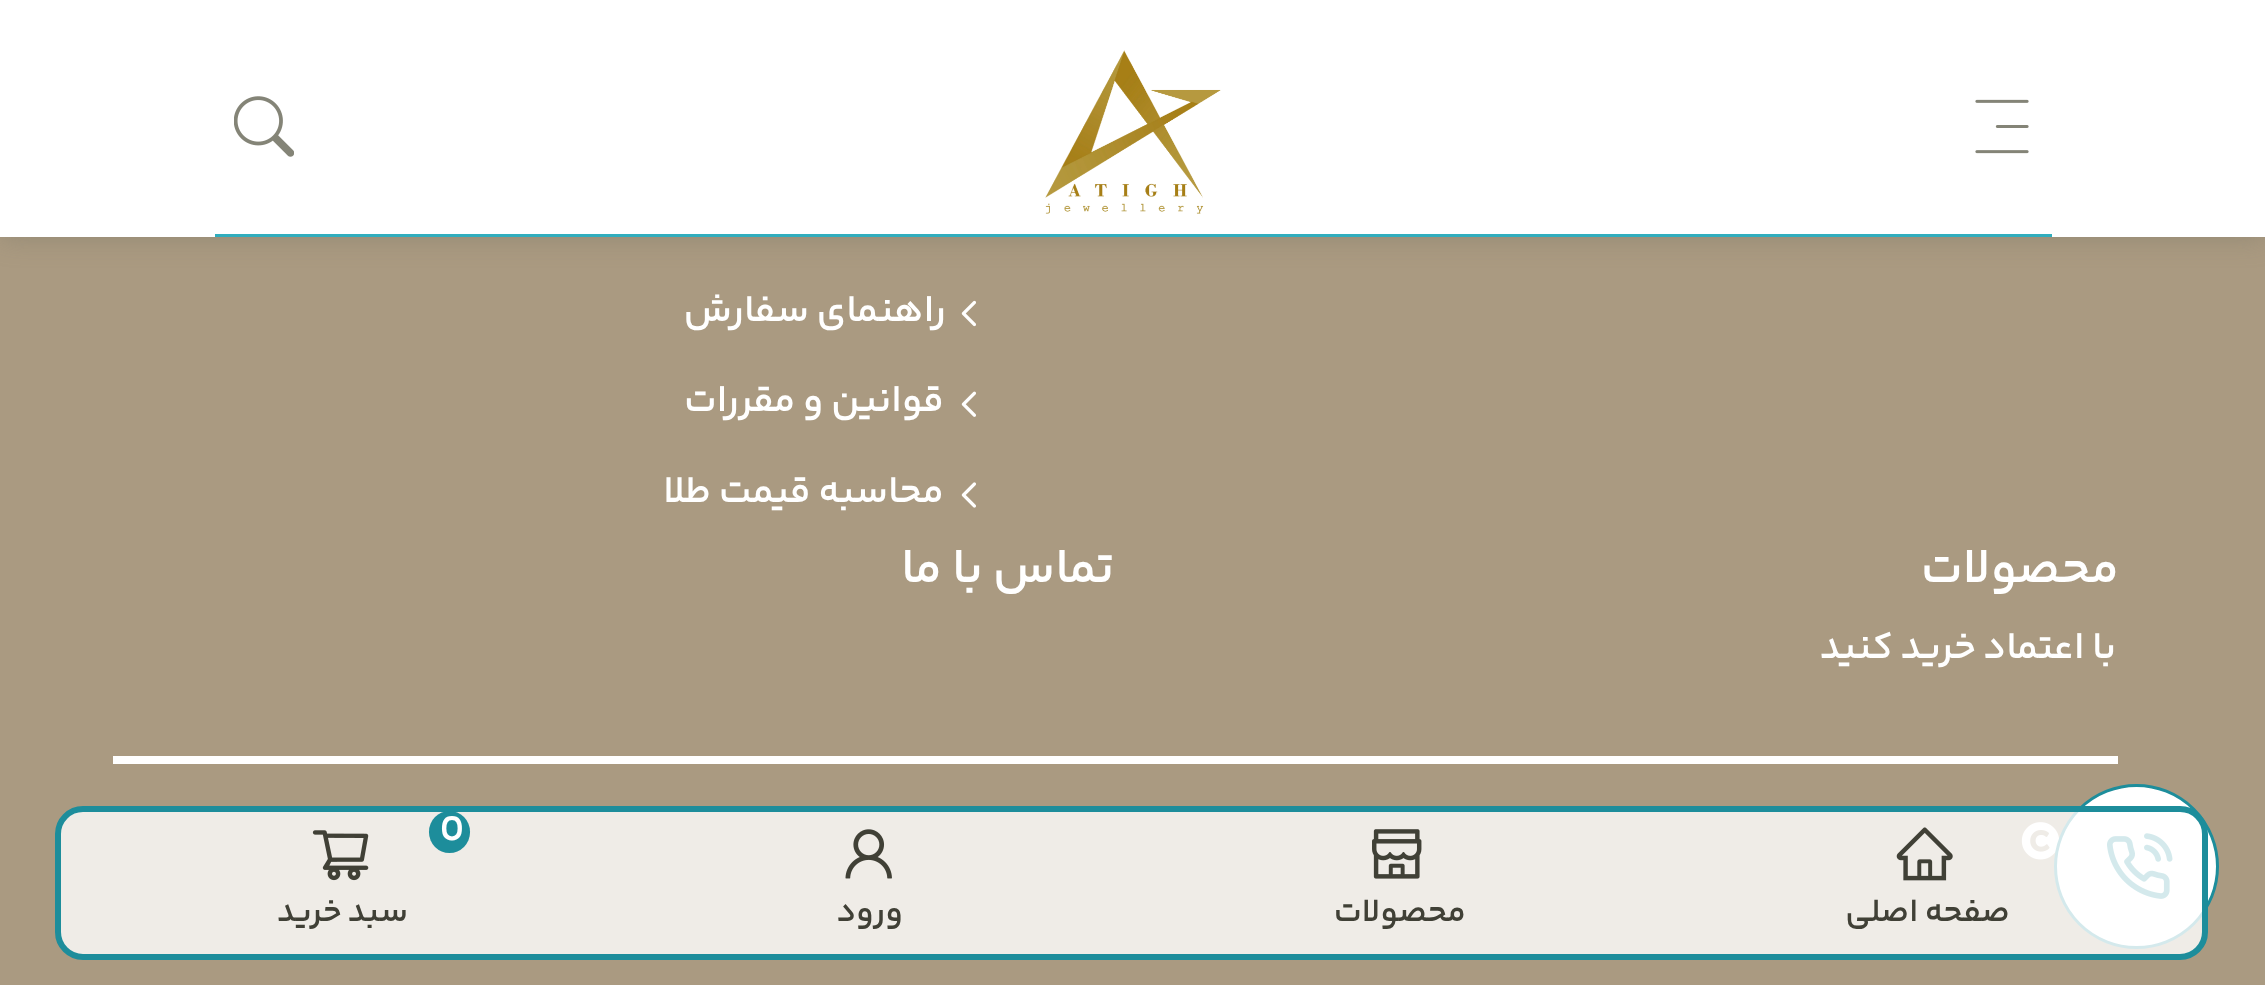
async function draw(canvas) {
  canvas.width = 2265
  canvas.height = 985
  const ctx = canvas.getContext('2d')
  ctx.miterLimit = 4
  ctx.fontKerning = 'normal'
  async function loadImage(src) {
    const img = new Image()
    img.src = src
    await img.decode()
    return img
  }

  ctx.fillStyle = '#aa9a81'
  ctx.fillRect(0, 0, 2265, 985)
  ctx.drawImage(await loadImage('image0.png'), 961, 300, 15, 27)
  ctx.letterSpacing = '0.4px'
  ctx.wordSpacing = '-2px'
  ctx.direction = 'rtl'
  ctx.font = '600 38.5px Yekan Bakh'
  ctx.fillStyle = '#fff'
  ctx.fillText('راهنمای سفارش', 946, 321)
  ctx.drawImage(await loadImage('image1.png'), 961, 391, 15, 26)
  ctx.fillText('قوانین و مقررات', 944, 411)
  ctx.drawImage(await loadImage('image2.png'), 961, 482, 15, 26)
  ctx.fillText('محاسبه قیمت طلا', 944, 502)
  ctx.wordSpacing = '0px'
  ctx.font = '600 49.5px Yekan Bakh'
  ctx.fillText('محصولات', 2119, 582)
  ctx.wordSpacing = '-2px'
  ctx.fillText('تماس با ما', 1114, 582)
  ctx.font = '600 38.5px Yekan Bakh'
  ctx.fillText('با اعتماد خرید کنید', 2116, 658)
  ctx.fillRect(113, 756, 2005, 8)
  ctx.drawImage(await loadImage('image3.png'), 2021, 822, 38, 38)
  ctx.beginPath()
  ctx.arc(2136.5, 866.5, 81, 0, 2 * Math.PI)
  ctx.fill()
  ctx.strokeStyle = '#1d8d9b'
  ctx.lineWidth = 3
  ctx.stroke()
  ctx.drawImage(await loadImage('image4.png'), 2107, 833, 66, 66)
  ctx.fillStyle = '#6e6e6066'
  ctx.filter = 'blur(14px)'
  ctx.beginPath()
  ctx.rect(0, 0, 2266, 237)
  ctx.fill()
  ctx.filter = 'none'
  ctx.fillStyle = '#fff'
  ctx.fillRect(0, 0, 2265, 237)
  ctx.fillStyle = '#30adbd'
  ctx.fillRect(215, 234, 1837, 3)
  ctx.drawImage(await loadImage('image5.png'), 1975, 99, 54, 55)
  ctx.drawImage(await loadImage('image6.png'), 1045, 50, 176, 164)
  ctx.drawImage(await loadImage('image7.png'), 234, 96, 60, 61)
  ctx.fillStyle = '#ffffffcf'
  ctx.beginPath()
  ctx.roundRect(58, 809, 2147, 148, 25)
  ctx.fill()
  ctx.lineWidth = 6
  ctx.stroke()
  ctx.drawImage(await loadImage('image8.png'), 1896, 827, 57, 54)
  ctx.font = '600 33px Yekan Bakh'
  ctx.fillStyle = '#404036'
  ctx.fillText('صفحه اصلی', 2010, 921)
  ctx.drawImage(await loadImage('image9.png'), 1372, 829, 50, 50)
  ctx.wordSpacing = '0px'
  ctx.fillText('محصولات', 1466, 921)
  ctx.drawImage(await loadImage('image10.png'), 845, 829, 47, 50)
  ctx.fillText('ورود', 903, 921)
  ctx.fillStyle = '#1d8d9b'
  ctx.beginPath()
  ctx.roundRect(429, 811, 41, 42, 20.5)
  ctx.fill()
  ctx.direction = 'ltr'
  ctx.font = '600 38.5px Yekan Bakh'
  ctx.fillStyle = '#fff'
  ctx.fillText('0', 440, 840)
  ctx.drawImage(await loadImage('image11.png'), 312, 830, 57, 51)
  ctx.wordSpacing = '-2px'
  ctx.direction = 'rtl'
  ctx.font = '600 33px Yekan Bakh'
  ctx.fillStyle = '#404036'
  ctx.fillText('سبد خرید', 408, 921)
}

draw(document.querySelector('canvas'))
